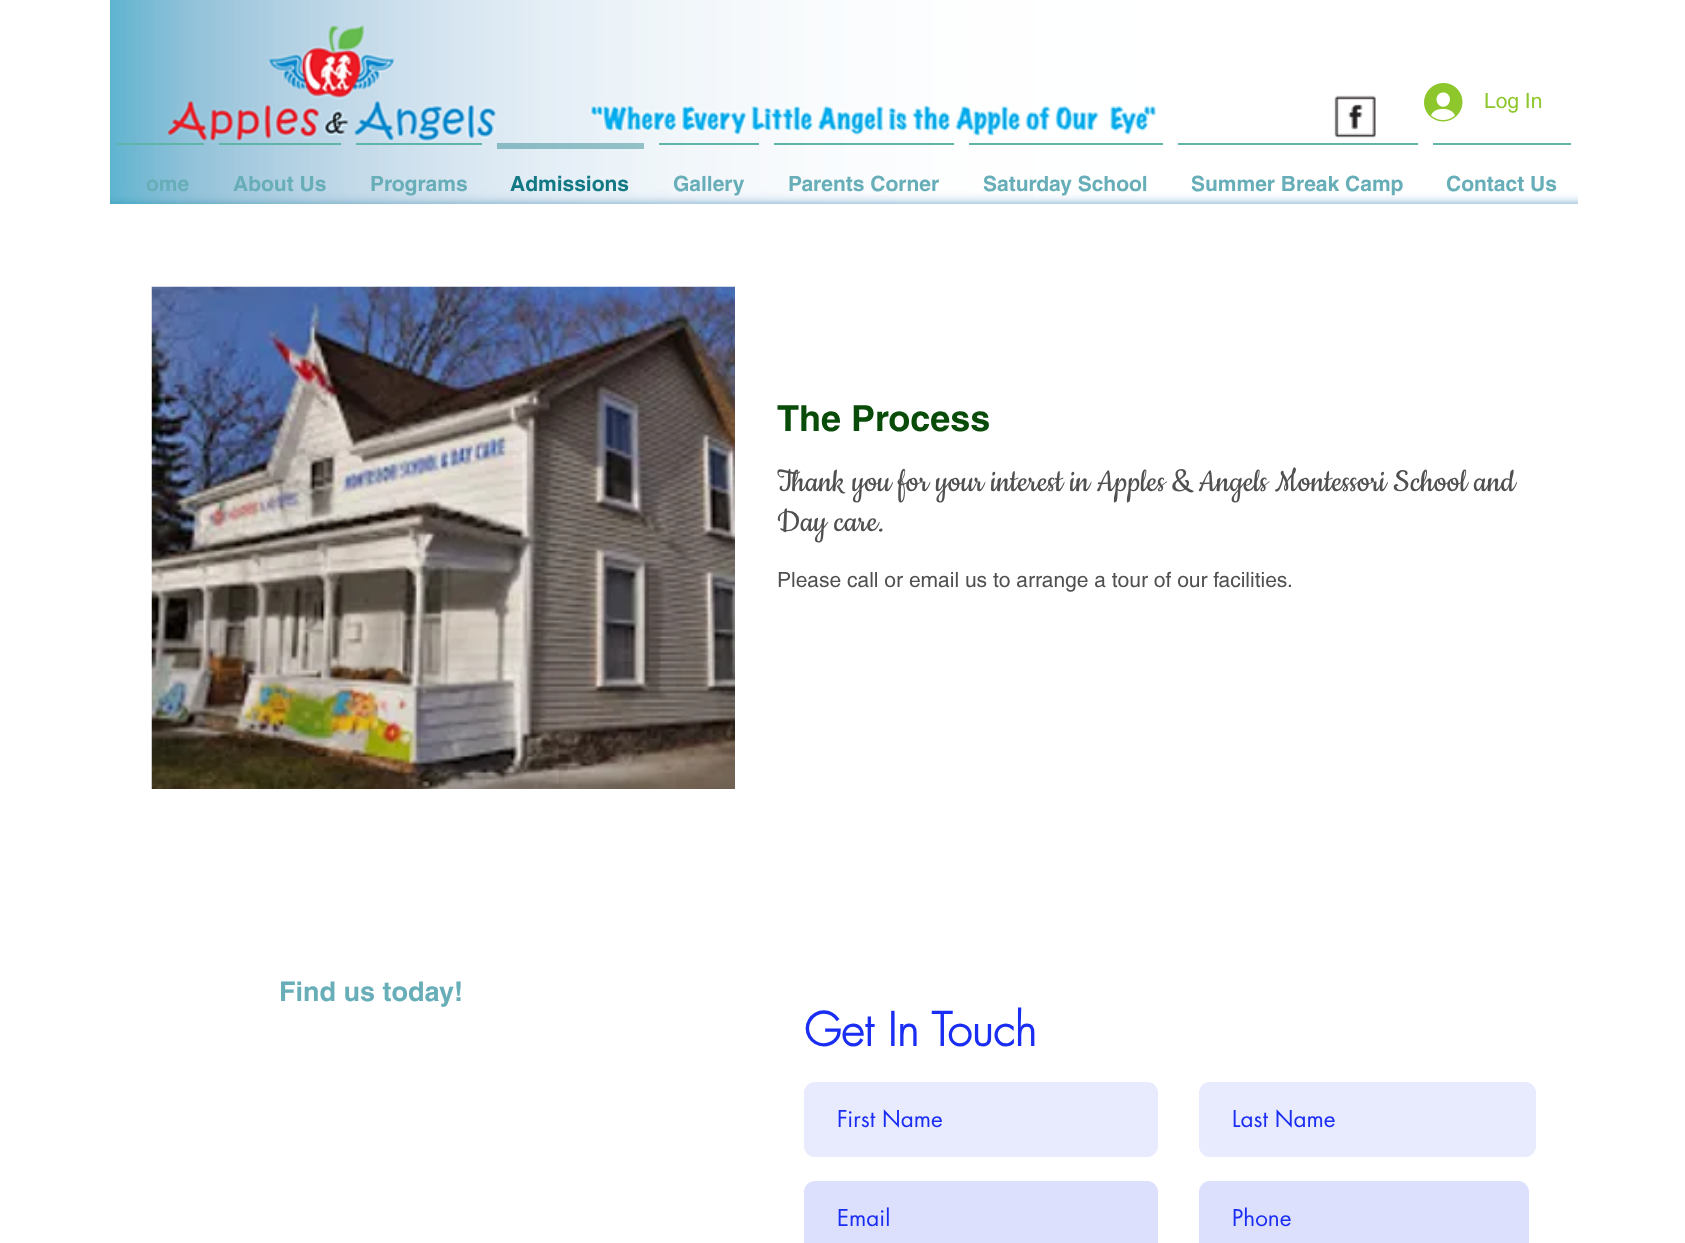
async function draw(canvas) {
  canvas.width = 1685
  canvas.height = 1243
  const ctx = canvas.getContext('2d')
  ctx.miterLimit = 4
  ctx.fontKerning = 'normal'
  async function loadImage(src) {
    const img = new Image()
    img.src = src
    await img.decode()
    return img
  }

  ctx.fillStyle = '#fff'
  ctx.fillRect(0, 0, 1685, 1243)
  ctx.drawImage(await loadImage('image0.png'), 110, 0, 1468, 204)
  ctx.drawImage(await loadImage('image1.png'), 1334, 95, 42, 43)
  ctx.drawImage(await loadImage('image2.png'), 1424, 83, 39, 39)
  ctx.font = '21px helvetica'
  ctx.fillStyle = '#8ec72c'
  ctx.fillText('Log In', 1484, 108)
  ctx.fillStyle = '#5eb5a8'
  ctx.fillRect(117, 143, 87, 2)
  ctx.font = 'bold 21px helvetica'
  ctx.fillStyle = '#67aeb8'
  ctx.fillText('ome', 146, 191)
  ctx.fillStyle = '#5eb5a8'
  ctx.fillRect(219, 143, 122, 2)
  ctx.fillStyle = '#67aeb8'
  ctx.fillText('About Us', 233, 191)
  ctx.fillStyle = '#5eb5a8'
  ctx.fillRect(356, 143, 126, 2)
  ctx.fillStyle = '#67aeb8'
  ctx.fillText('Programs', 370, 191)
  ctx.fillStyle = '#1279846b'
  ctx.fillRect(497, 143, 147, 6)
  ctx.fillStyle = '#127984'
  ctx.fillText('Admissions', 510, 191)
  ctx.fillStyle = '#5eb5a8'
  ctx.fillRect(659, 143, 100, 2)
  ctx.fillStyle = '#67aeb8'
  ctx.fillText('Gallery', 673, 191)
  ctx.fillStyle = '#5eb5a8'
  ctx.fillRect(774, 143, 180, 2)
  ctx.fillStyle = '#67aeb8'
  ctx.fillText('Parents Corner', 788, 191)
  ctx.fillStyle = '#5eb5a8'
  ctx.fillRect(969, 143, 194, 2)
  ctx.fillStyle = '#67aeb8'
  ctx.fillText('Saturday School', 983, 191)
  ctx.fillStyle = '#5eb5a8'
  ctx.fillRect(1178, 143, 240, 2)
  ctx.fillStyle = '#67aeb8'
  ctx.fillText('Summer Break Camp', 1191, 191)
  ctx.fillStyle = '#5eb5a8'
  ctx.fillRect(1433, 143, 138, 2)
  ctx.fillStyle = '#67aeb8'
  ctx.fillText('Contact Us', 1446, 191)
  ctx.drawImage(await loadImage('image3.png'), 151, 286, 584, 503)
  ctx.font = 'bold 36px helvetica'
  ctx.fillStyle = '#094c09'
  ctx.fillText('The Process', 777, 431)
  ctx.font = '36px Cookie'
  ctx.fillStyle = '#515050'
  ctx.fillText('Thank you for your interest in Apples & Angels Montessori School and', 777, 491)
  ctx.fillText('Day care.', 777, 531)
  ctx.font = '21px helvetica'
  ctx.fillText('Please call or email us to arrange a tour of our facilities.', 777, 587)
  ctx.font = 'bold 27px helvetica'
  ctx.fillStyle = '#67aeb8'
  ctx.fillText('Find us today!', 279, 1001)
  ctx.font = 'bold 45px futura'
  ctx.fillStyle = '#1a2df3'
  ctx.fillText('Get In Touch', 804, 1046)
  ctx.fillStyle = '#e8eafe'
  ctx.beginPath()
  ctx.roundRect(804, 1082, 354, 75, 11)
  ctx.fill()
  ctx.font = '22.5px futura'
  ctx.fillStyle = '#1a2df3'
  ctx.fillText('First Name', 837, 1127)
  ctx.fillStyle = '#e8eafe'
  ctx.beginPath()
  ctx.roundRect(1199, 1082, 337, 75, 11)
  ctx.fill()
  ctx.fillStyle = '#1a2df3'
  ctx.fillText('Last Name', 1232, 1127)
  ctx.fillStyle = '#dde0fd'
  ctx.beginPath()
  ctx.roundRect(804, 1181, 354, 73, 11)
  ctx.fill()
  ctx.fillStyle = '#1a2df3'
  ctx.fillText('Email', 837, 1226)
  ctx.fillStyle = '#dde0fd'
  ctx.beginPath()
  ctx.roundRect(1199, 1181, 330, 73, 11)
  ctx.fill()
  ctx.fillStyle = '#1a2df3'
  ctx.fillText('Phone', 1232, 1226)
}

draw(document.querySelector('canvas'))
